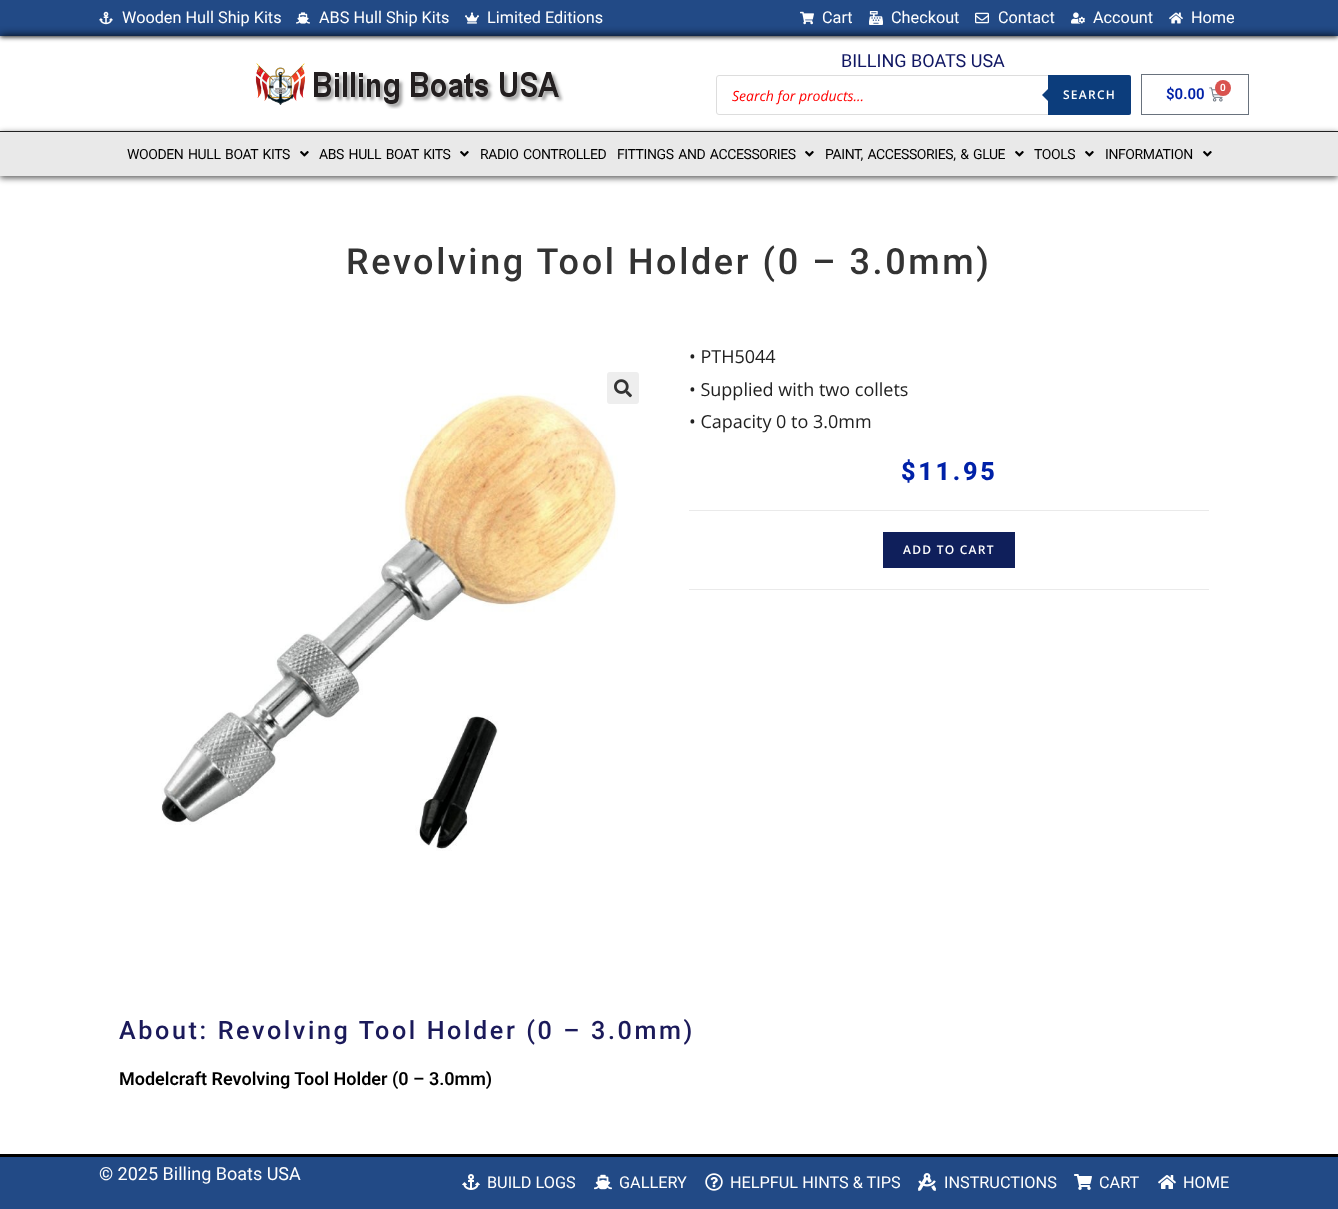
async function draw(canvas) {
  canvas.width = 1338
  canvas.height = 1209
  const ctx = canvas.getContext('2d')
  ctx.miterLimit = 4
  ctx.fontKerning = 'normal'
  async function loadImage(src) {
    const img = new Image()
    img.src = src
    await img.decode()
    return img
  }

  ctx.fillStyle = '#fff'
  ctx.fillRect(0, 0, 1338, 1209)
  ctx.fillStyle = '#000000e3'
  ctx.filter = 'blur(2.5px)'
  ctx.beginPath()
  ctx.rect(0, 1, 1338, 36)
  ctx.fill()
  ctx.filter = 'none'
  ctx.fillStyle = '#224a86'
  ctx.fillRect(0, 0, 1338, 36)
  ctx.drawImage(await loadImage('image0.png'), 99, 11, 14, 14)
  ctx.font = '16.25px Roboto'
  ctx.fillStyle = '#fff'
  ctx.fillText('Wooden Hull Ship Kits', 122, 23)
  ctx.drawImage(await loadImage('image1.png'), 296, 12, 14, 12)
  ctx.fillText('ABS Hull Ship Kits', 319, 23)
  ctx.drawImage(await loadImage('image2.png'), 465, 12, 14, 12)
  ctx.fillText('Limited Editions', 487, 23)
  ctx.drawImage(await loadImage('image3.png'), 800, 11, 14, 14)
  ctx.fillText('Cart', 822, 23)
  ctx.drawImage(await loadImage('image4.png'), 869, 11, 14, 14)
  ctx.fillText('Checkout', 891, 23)
  ctx.drawImage(await loadImage('image5.png'), 975, 12, 14, 12)
  ctx.fillText('Contact', 998, 23)
  ctx.drawImage(await loadImage('image6.png'), 1071, 12, 14, 12)
  ctx.fillText('Account', 1093, 23)
  ctx.drawImage(await loadImage('image7.png'), 1169, 12, 14, 12)
  ctx.fillText('Home', 1191, 23)
  ctx.save()
  ctx.beginPath()
  ctx.rect(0, 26, 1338, 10)
  ctx.clip()
  ctx.fillStyle = '#000000f2'
  ctx.filter = 'blur(5px)'
  ctx.beginPath()
  ctx.rect(0, 36, 1338, 95)
  ctx.fill()
  ctx.filter = 'none'
  ctx.restore()
  ctx.drawImage(await loadImage('image8.png'), 255, 63, 309, 46)
  ctx.font = '18px Roboto'
  ctx.fillStyle = '#101763'
  ctx.fillText('BILLING BOATS USA', 841, 67)
  ctx.beginPath()
  ctx.roundRect(716.5, 75.5, 414, 39, 2.5)
  ctx.strokeStyle = '#ddd'
  ctx.stroke()
  ctx.font = 'italic 14px Open Sans'
  ctx.fillStyle = '#f00'
  ctx.fillText('Search for products...', 732, 101)
  ctx.fillStyle = '#0c3d7c'
  ctx.beginPath()
  ctx.roundRect(1048, 75, 83, 40, [0, 2, 2, 0])
  ctx.fill()
  ctx.beginPath()
  ctx.moveTo(1050, 87)
  ctx.lineTo(1050, 103)
  ctx.lineTo(1042, 95)
  ctx.closePath()
  ctx.fill()
  ctx.letterSpacing = '1.25px'
  ctx.font = '600 12px Open Sans'
  ctx.fillStyle = '#fff'
  ctx.fillText('SEARCH', 1063, 99)
  ctx.strokeStyle = '#69727d'
  ctx.strokeRect(1141.5, 74.5, 107, 40)
  ctx.letterSpacing = '0px'
  ctx.font = '600 15px Roboto'
  ctx.fillStyle = '#0021a8'
  ctx.fillText('$0.00', 1166, 99)
  ctx.drawImage(await loadImage('image9.png'), 1209, 87, 14, 15)
  ctx.fillStyle = '#d9534f'
  ctx.beginPath()
  ctx.arc(1223, 88, 8, 0, 2 * Math.PI)
  ctx.fill()
  ctx.font = '600 10px Roboto'
  ctx.fillStyle = '#fff'
  ctx.fillText('0', 1220, 91)
  ctx.fillStyle = '#000000a8'
  ctx.filter = 'blur(3px)'
  ctx.beginPath()
  ctx.rect(0, 133, 1338, 45)
  ctx.fill()
  ctx.filter = 'none'
  ctx.fillStyle = '#e9e9e9'
  ctx.fillRect(0, 132, 1338, 44)
  ctx.fillStyle = '#212121'
  ctx.fillRect(0, 131, 1338, 1)
  ctx.letterSpacing = '-0.4px'
  ctx.wordSpacing = '1.5px'
  ctx.font = '14px Roboto'
  ctx.fillStyle = '#000'
  ctx.fillText('WOODEN HULL BOAT KITS', 127, 159)
  ctx.drawImage(await loadImage('image10.png'), 300, 151, 9, 6)
  ctx.fillText('ABS HULL BOAT KITS', 319, 159)
  ctx.drawImage(await loadImage('image10.png'), 460, 151, 9, 6)
  ctx.fillText('RADIO CONTROLLED', 480, 159)
  ctx.fillText('FITTINGS AND ACCESSORIES', 617, 159)
  ctx.drawImage(await loadImage('image10.png'), 805, 151, 9, 6)
  ctx.fillText('PAINT, ACCESSORIES, & GLUE', 825, 159)
  ctx.drawImage(await loadImage('image10.png'), 1015, 151, 9, 6)
  ctx.wordSpacing = '0px'
  ctx.fillText('TOOLS', 1034, 159)
  ctx.drawImage(await loadImage('image10.png'), 1085, 151, 9, 6)
  ctx.fillText('INFORMATION', 1105, 159)
  ctx.drawImage(await loadImage('image10.png'), 1203, 151, 9, 6)
  ctx.letterSpacing = '2.6px'
  ctx.font = '500 36px Roboto'
  ctx.fillStyle = '#333'
  ctx.fillText('Revolving Tool Holder (0 – 3.0mm)', 346, 274)
  ctx.drawImage(await loadImage('image12.png'), 161, 393, 457, 458)
  ctx.fillStyle = '#eee'
  ctx.beginPath()
  ctx.roundRect(607, 372, 32, 32, 3)
  ctx.fill()
  ctx.drawImage(await loadImage('image11.png'), 614, 379, 18, 19)
  ctx.letterSpacing = '0px'
  ctx.font = '18px Open Sans'
  ctx.fillStyle = '#212121'
  ctx.fillText('• PTH5044', 689, 363)
  ctx.fillText('• Supplied with two collets', 689, 396)
  ctx.fillText('• Capacity 0 to 3.0mm', 689, 428)
  ctx.letterSpacing = '2.75px'
  ctx.font = '800 25.2px Roboto'
  ctx.fillStyle = '#0021a8'
  ctx.fillText('$11.95', 901, 480)
  ctx.fillStyle = '#eaeaea'
  ctx.fillRect(689, 510, 520, 1)
  ctx.fillRect(689, 589, 520, 1)
  ctx.fillStyle = '#0f1f5b'
  ctx.fillRect(883, 532, 132, 36)
  ctx.letterSpacing = '1.25px'
  ctx.font = '600 12px Open Sans'
  ctx.fillStyle = '#fff'
  ctx.fillText('ADD TO CART', 903, 554)
  ctx.letterSpacing = '2.6px'
  ctx.font = '500 25.2px Roboto'
  ctx.fillStyle = '#1b1a5a'
  ctx.fillText('About: Revolving Tool Holder (0 – 3.0mm)', 119, 1039)
  ctx.letterSpacing = '0px'
  ctx.font = '600 18px Roboto'
  ctx.fillStyle = '#000'
  ctx.fillText('Modelcraft Revolving Tool Holder (0 – 3.0mm)', 119, 1085)
  ctx.fillStyle = '#224a86'
  ctx.fillRect(0, 1157, 1338, 52)
  ctx.fillStyle = '#000'
  ctx.fillRect(0, 1154, 1338, 3)
  ctx.font = '18px Roboto'
  ctx.fillStyle = '#fff'
  ctx.fillText('© 2025 Billing Boats USA', 99, 1180)
  ctx.drawImage(await loadImage('image13.png'), 462, 1174, 18, 16)
  ctx.font = '16.25px Roboto'
  ctx.fillText('BUILD LOGS', 487, 1188)
  ctx.drawImage(await loadImage('image14.png'), 594, 1174, 18, 16)
  ctx.fillText('GALLERY', 619, 1188)
  ctx.drawImage(await loadImage('image15.png'), 705, 1173, 18, 18)
  ctx.fillText('HELPFUL HINTS & TIPS', 730, 1188)
  ctx.drawImage(await loadImage('image16.png'), 918, 1173, 18, 18)
  ctx.fillText('INSTRUCTIONS', 944, 1188)
  ctx.drawImage(await loadImage('image17.png'), 1074, 1174, 18, 16)
  ctx.fillText('CART', 1099, 1188)
  ctx.drawImage(await loadImage('image18.png'), 1158, 1175, 18, 14)
  ctx.fillText('HOME', 1183, 1188)
}

draw(document.querySelector('canvas'))
